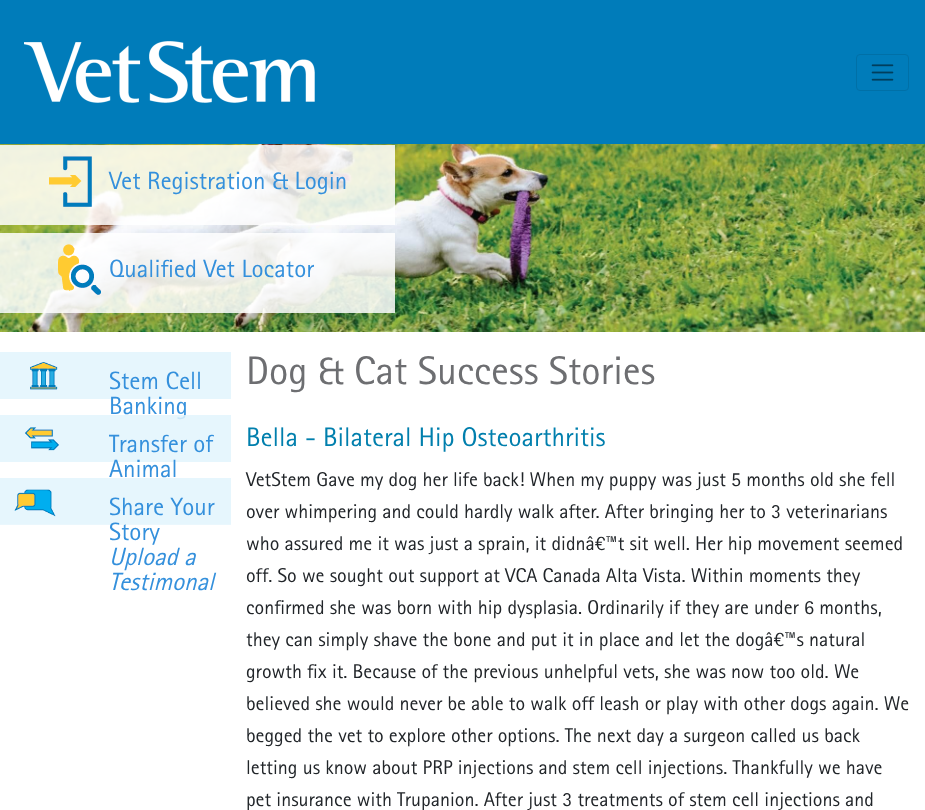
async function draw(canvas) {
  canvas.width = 925
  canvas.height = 810
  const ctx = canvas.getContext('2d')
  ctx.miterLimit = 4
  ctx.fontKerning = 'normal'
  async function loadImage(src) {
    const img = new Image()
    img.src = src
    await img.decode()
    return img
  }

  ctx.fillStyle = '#fff'
  ctx.fillRect(0, 0, 925, 810)
  ctx.fillStyle = '#007cba'
  ctx.fillRect(0, 0, 925, 144)
  ctx.drawImage(await loadImage('image0.png'), 24, 41, 291, 62)
  ctx.beginPath()
  ctx.roundRect(856.5, 54.5, 52, 36, 3.5)
  ctx.strokeStyle = '#0070a7'
  ctx.stroke()
  ctx.drawImage(await loadImage('image1.png'), 871, 64, 23, 17)
  ctx.drawImage(await loadImage('image2.png'), 0, 144, 925, 188)
  ctx.drawImage(await loadImage('image3.png'), 0, 145, 395, 80)
  ctx.font = '25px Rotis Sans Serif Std'
  ctx.fillStyle = '#3490dc'
  ctx.fillText('Vet Registration & Login', 109, 189)
  ctx.drawImage(await loadImage('image4.png'), 0, 233, 395, 80)
  ctx.fillText('Qualified Vet Locator', 109, 277)
  ctx.drawImage(await loadImage('image5.png'), 0, 352, 231, 47)
  ctx.fillText('Stem Cell', 109, 389)
  ctx.fillText('Banking', 109, 414)
  ctx.drawImage(await loadImage('image6.png'), 0, 415, 231, 47)
  ctx.fillText('Transfer of', 109, 452)
  ctx.fillText('Animal', 109, 477)
  ctx.drawImage(await loadImage('image7.png'), 0, 478, 231, 47)
  ctx.fillText('Share Your', 109, 515)
  ctx.fillText('Story', 109, 540)
  ctx.font = 'italic 25px Rotis Sans Serif Std'
  ctx.fillText('Upload a', 109, 565)
  ctx.fillText('Testimonal', 109, 590)
  ctx.font = '40px Rotis Sans Serif Std'
  ctx.fillStyle = '#6d6e71'
  ctx.fillText('Dog & Cat Success Stories', 246, 384)
  ctx.font = '27px Rotis Sans Serif Std'
  ctx.fillStyle = '#007fad'
  ctx.fillText('Bella - Bilateral Hip Osteoarthritis', 246, 446)
  ctx.font = '20px Rotis Sans Serif Std'
  ctx.fillStyle = '#212529'
  ctx.fillText('VetStem Gave my dog her life back! When my puppy was just 5 months old she fell', 246, 486)
  ctx.fillText('over whimpering and could hardly walk after. After bringing her to 3 veterinarians', 246, 518)
  ctx.fillText('who assured me it was just a sprain, it didnâ€™t sit well. Her hip movement seemed', 246, 550)
  ctx.fillText('off. So we sought out support at VCA Canada Alta Vista. Within moments they', 246, 582)
  ctx.fillText('confirmed she was born with hip dysplasia. Ordinarily if they are under 6 months,', 246, 614)
  ctx.fillText('they can simply shave the bone and put it in place and let the dogâ€™s natural', 246, 646)
  ctx.fillText('growth fix it. Because of the previous unhelpful vets, she was now too old. We', 246, 678)
  ctx.fillText('believed she would never be able to walk off leash or play with other dogs again. We', 246, 710)
  ctx.fillText('begged the vet to explore other options. The next day a surgeon called us back', 246, 742)
  ctx.fillText('letting us know about PRP injections and stem cell injections. Thankfully we have', 246, 774)
  ctx.fillText('pet insurance with Trupanion. After just 3 treatments of stem cell injections and', 246, 806)
}

draw(document.querySelector('canvas'))
